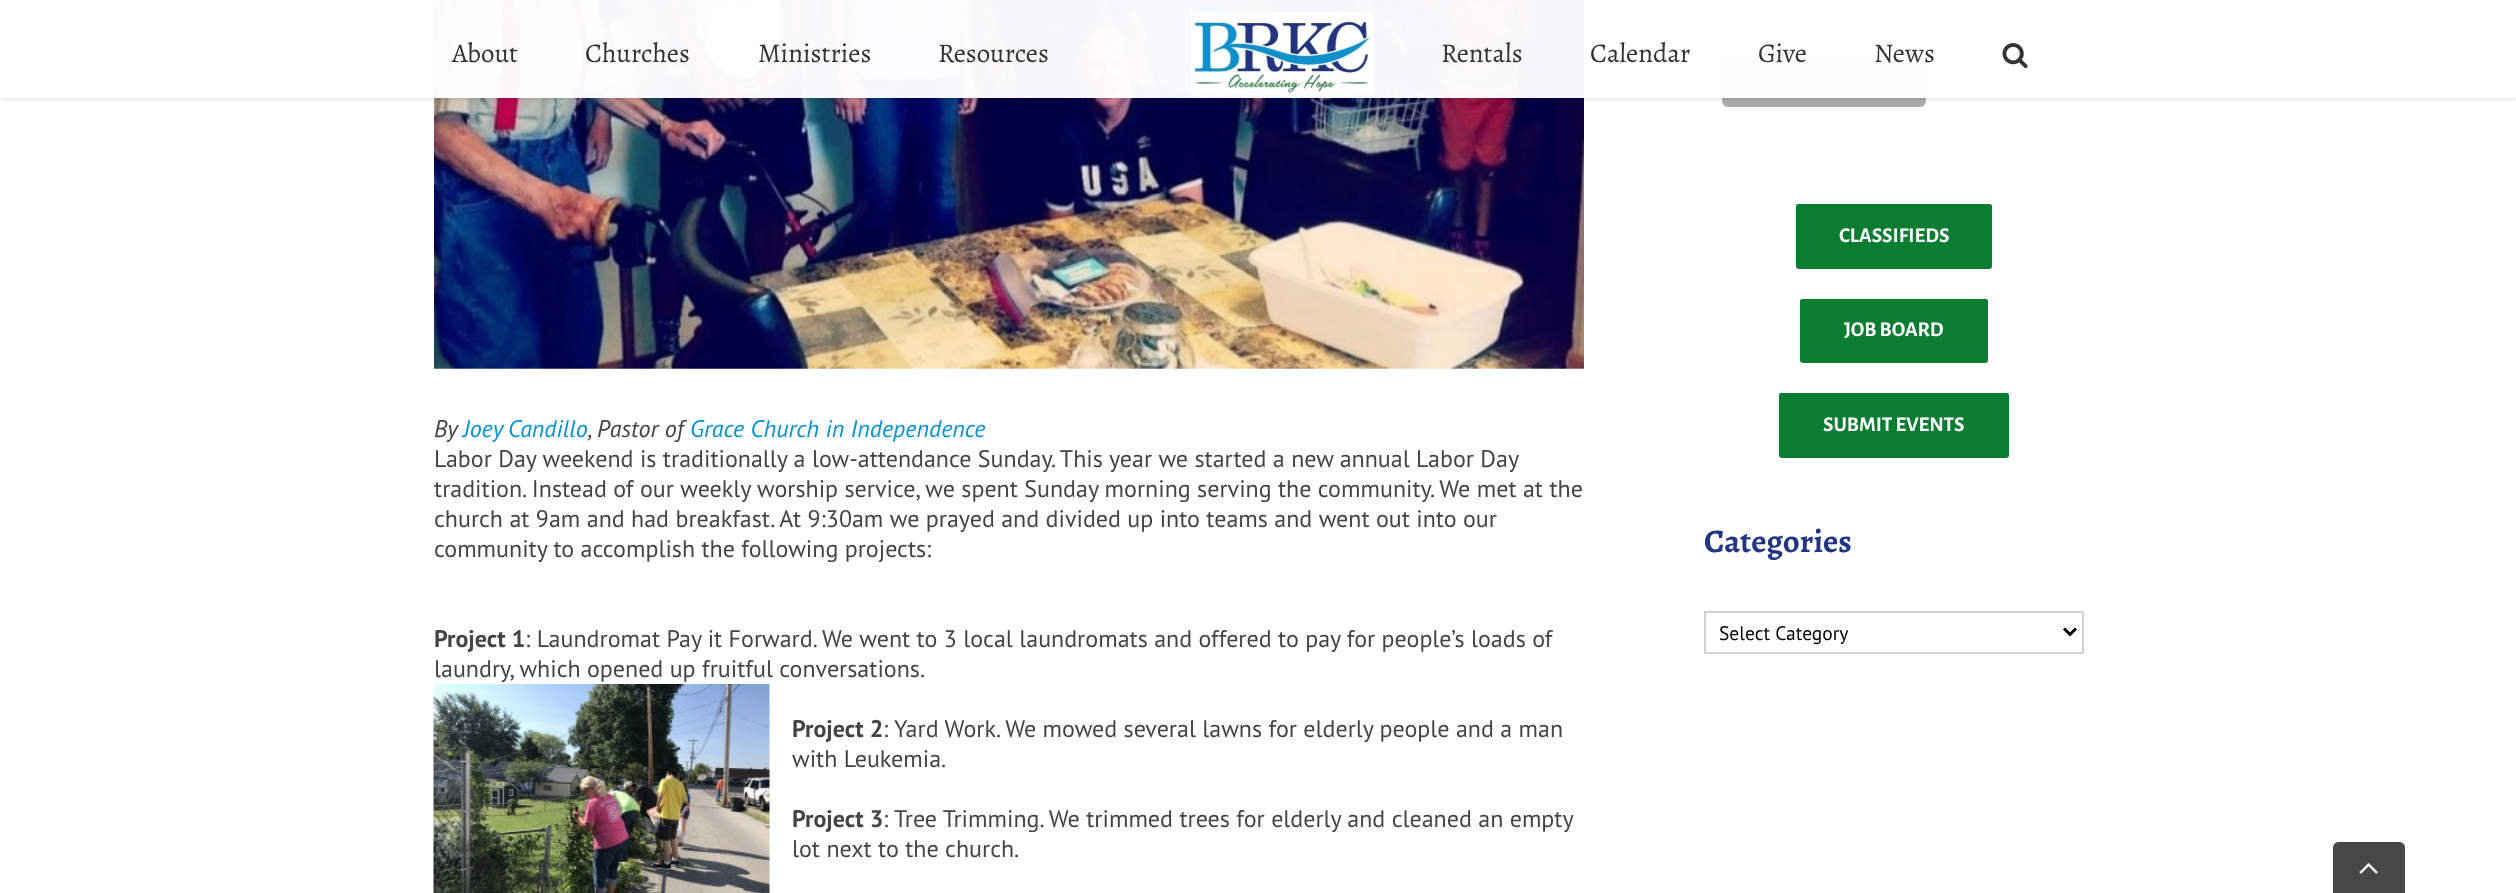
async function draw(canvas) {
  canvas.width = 2516
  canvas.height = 893
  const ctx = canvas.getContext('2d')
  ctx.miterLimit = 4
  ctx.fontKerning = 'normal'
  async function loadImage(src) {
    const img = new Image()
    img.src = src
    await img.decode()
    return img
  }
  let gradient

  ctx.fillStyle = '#fff'
  ctx.fillRect(0, 0, 2516, 893)
  ctx.drawImage(await loadImage('image2.png'), 434, 0, 1150, 369)
  ctx.beginPath()
  ctx.roundRect(1723, -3, 336, 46, 4)
  ctx.strokeStyle = '#abb0b2'
  ctx.lineWidth = 2
  ctx.stroke()
  ctx.fillStyle = '#aaa'
  ctx.beginPath()
  ctx.roundRect(1722, 59, 204, 48, 6)
  ctx.fill()
  ctx.save()
  ctx.beginPath()
  ctx.moveTo(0, 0)
  ctx.lineTo(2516, 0)
  ctx.lineTo(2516, 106)
  ctx.lineTo(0, 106)
  ctx.closePath()
  ctx.moveTo(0, 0)
  ctx.lineTo(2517, 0)
  ctx.lineTo(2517, 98)
  ctx.lineTo(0, 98)
  ctx.closePath()
  ctx.clip('evenodd')
  ctx.fillStyle = '#0000001f'
  ctx.filter = 'blur(2px)'
  ctx.beginPath()
  ctx.rect(0, 2, 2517, 97)
  ctx.fill()
  ctx.filter = 'none'
  ctx.restore()
  ctx.fillStyle = '#fffffff7'
  ctx.fillRect(0, 0, 2516, 98)
  ctx.font = '27px Alegreya'
  ctx.fillStyle = '#333'
  ctx.fillText('About', 452, 62)
  ctx.fillText('Churches', 585, 62)
  ctx.fillText('Ministries', 758, 62)
  ctx.fillText('Resources', 938, 62)
  ctx.drawImage(await loadImage('image0.png'), 1191, 12, 183, 83)
  ctx.fillText('Rentals', 1441, 62)
  ctx.fillText('Calendar', 1590, 62)
  ctx.fillText('Give', 1758, 62)
  ctx.fillText('News', 1874, 62)
  ctx.drawImage(await loadImage('image1.png'), 2002, 43, 26, 26)
  ctx.font = 'italic 24px PT Sans'
  ctx.fillStyle = '#444'
  ctx.fillText('By', 434, 437)
  ctx.wordSpacing = '-1px'
  ctx.fillStyle = '#0792d8'
  ctx.fillText('Joey Candillo', 463, 437)
  ctx.wordSpacing = '0px'
  ctx.fillStyle = '#444'
  ctx.fillText(', Pastor of', 588, 437)
  ctx.fillStyle = '#0792d8'
  ctx.fillText('Grace Church in Independence', 690, 437)
  ctx.font = '24px PT Sans'
  ctx.fillStyle = '#444'
  ctx.fillText('Labor Day weekend is traditionally a low-attendance Sunday. This year we started a new annual Labor Day', 434, 467)
  ctx.fillText('tradition. Instead of our weekly worship service, we spent Sunday morning serving the community. We met at the', 434, 497)
  ctx.fillText('church at 9am and had breakfast. At 9:30am we prayed and divided up into teams and went out into our', 434, 527)
  ctx.fillText('community to accomplish the following projects:', 434, 557)
  ctx.font = 'bold 24px PT Sans'
  ctx.fillText('Project 1', 434, 647)
  ctx.font = '24px PT Sans'
  ctx.fillText(': Laundromat Pay it Forward. We went to 3 local laundromats and offered to pay for people’s loads of', 525, 647)
  ctx.fillText('laundry, which opened up fruitful conversations.', 434, 677)
  ctx.drawImage(await loadImage('image3.png'), 433, 684, 337, 209)
  ctx.font = 'bold 24px PT Sans'
  ctx.fillText('Project 2', 792, 737)
  ctx.font = '24px PT Sans'
  ctx.fillText(': Yard Work. We mowed several lawns for elderly people and a man', 883, 737)
  ctx.fillText('with Leukemia.', 792, 767)
  ctx.font = 'bold 24px PT Sans'
  ctx.fillText('Project 3', 792, 827)
  ctx.font = '24px PT Sans'
  ctx.fillText(': Tree Trimming. We trimmed trees for elderly and cleaned an empty', 883, 827)
  ctx.fillText('lot next to the church.', 792, 857)
  ctx.fillStyle = '#0a7d32'
  ctx.beginPath()
  ctx.roundRect(1796, 204, 196, 65, 3)
  ctx.fill()
  gradient = ctx.createLinearGradient(1894, 204, 1894, 269)
  gradient.addColorStop(0, '#0a7d32')
  gradient.addColorStop(1, '#0a7d3200')
  ctx.fillStyle = gradient
  ctx.beginPath()
  ctx.roundRect(1796, 204, 196, 65, 3)
  ctx.fill()
  ctx.font = 'bold 21px Alegreya Sans'
  ctx.fillStyle = '#fff'
  ctx.fillText('CLASSIFIEDS', 1839, 242)
  ctx.fillStyle = '#0a7d32'
  ctx.beginPath()
  ctx.roundRect(1800, 299, 188, 64, 3)
  ctx.fill()
  gradient = ctx.createLinearGradient(1894, 299, 1894, 363)
  gradient.addColorStop(0, '#0a7d32')
  gradient.addColorStop(1, '#0a7d3200')
  ctx.fillStyle = gradient
  ctx.beginPath()
  ctx.roundRect(1800, 299, 188, 64, 3)
  ctx.fill()
  ctx.fillStyle = '#fff'
  ctx.fillText('JOB BOARD', 1844, 336)
  ctx.fillStyle = '#0a7d32'
  ctx.beginPath()
  ctx.roundRect(1779, 393, 230, 65, 3)
  ctx.fill()
  gradient = ctx.createLinearGradient(1894, 393, 1894, 458)
  gradient.addColorStop(0, '#0a7d32')
  gradient.addColorStop(1, '#0a7d3200')
  ctx.fillStyle = gradient
  ctx.beginPath()
  ctx.roundRect(1779, 393, 230, 65, 3)
  ctx.fill()
  ctx.fillStyle = '#fff'
  ctx.fillText('SUBMIT EVENTS', 1823, 431)
  ctx.font = 'bold 33px Alegreya'
  ctx.fillStyle = '#223584'
  ctx.fillText('Categories', 1704, 552)
  ctx.strokeStyle = '#d2d2d2'
  ctx.strokeRect(1705, 612, 378, 41)
  ctx.beginPath()
  ctx.moveTo(2064, 628.5)
  ctx.lineTo(2070, 634.5)
  ctx.lineTo(2076, 628.5)
  ctx.strokeStyle = '#000'
  ctx.lineWidth = 3
  ctx.stroke()
  ctx.font = '19.5px PT Sans'
  ctx.fillStyle = '#000'
  ctx.fillText('Select Category', 1719, 640)
  ctx.fillStyle = '#474747'
  ctx.beginPath()
  ctx.moveTo(2339, 842)
  ctx.lineTo(2399, 842)
  ctx.bezierCurveTo(2402.5, 842, 2405, 844.5, 2405, 848)
  ctx.lineTo(2405, 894)
  ctx.lineTo(2333, 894)
  ctx.lineTo(2333, 848)
  ctx.bezierCurveTo(2333, 844.5, 2335.5, 842, 2339, 842)
  ctx.closePath()
  ctx.fill()
  ctx.drawImage(await loadImage('image4.png'), 2359, 863, 19, 11)
}

draw(document.querySelector('canvas'))
